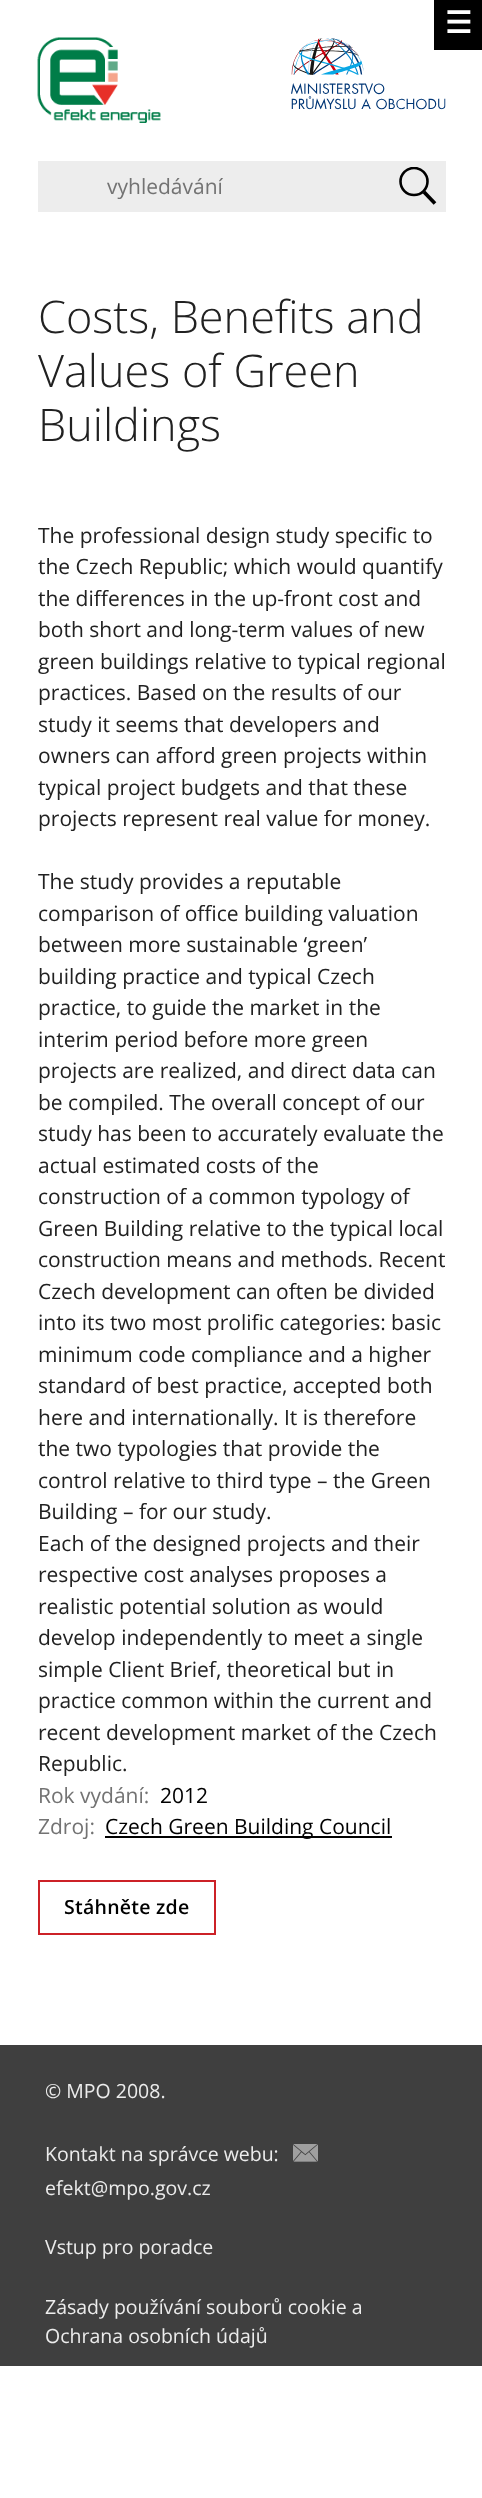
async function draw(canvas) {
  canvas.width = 482
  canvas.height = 2498
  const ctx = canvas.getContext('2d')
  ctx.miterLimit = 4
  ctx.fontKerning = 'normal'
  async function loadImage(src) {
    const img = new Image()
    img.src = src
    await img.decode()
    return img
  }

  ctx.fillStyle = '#fff'
  ctx.fillRect(0, 0, 482, 2498)
  ctx.drawImage(await loadImage('image1.png'), 291, 38, 155, 72)
  ctx.fillStyle = '#000'
  ctx.fillRect(434, 0, 48, 50)
  ctx.font = 'bold 30px DejaVu Sans'
  ctx.fillStyle = '#fff'
  ctx.fillText('☰', 445, 33)
  ctx.drawImage(await loadImage('image0.png'), 37, 37, 124, 86)
  ctx.fillStyle = '#ededed'
  ctx.fillRect(38, 161, 408, 51)
  ctx.font = '21px Open Sans'
  ctx.fillStyle = '#737373'
  ctx.fillText('vyhledávání', 107, 194)
  ctx.save()
  ctx.beginPath()
  ctx.rect(399, 167, 38, 37)
  ctx.clip()
  ctx.beginPath()
  ctx.arc(414, 181.5, 13.5, 0, 2 * Math.PI)
  ctx.strokeStyle = '#000'
  ctx.lineWidth = 2.6
  ctx.stroke()
  ctx.restore()
  ctx.beginPath()
  ctx.moveTo(424, 192)
  ctx.lineTo(435, 203.5)
  ctx.strokeStyle = '#000'
  ctx.lineWidth = 3.7
  ctx.stroke()
  ctx.font = '300 45px Open Sans'
  ctx.fillStyle = '#212121'
  ctx.fillText('Costs, Benefits and', 38, 333)
  ctx.fillText('Values of Green', 38, 387)
  ctx.fillText('Buildings', 38, 441)
  ctx.font = '21px Open Sans'
  ctx.fillText('The professional design study specific to', 38, 543)
  ctx.fillText('the Czech Republic; which would quantify', 38, 574)
  ctx.fillText('the differences in the up-front cost and', 38, 606)
  ctx.fillText('both short and long-term values of new', 38, 637)
  ctx.fillText('green buildings relative to typical regional', 38, 669)
  ctx.fillText('practices. Based on the results of our', 38, 700)
  ctx.fillText('study it seems that developers and', 38, 732)
  ctx.fillText('owners can afford green projects within', 38, 763)
  ctx.fillText('typical project budgets and that these', 38, 795)
  ctx.fillText('projects represent real value for money.', 38, 826)
  ctx.fillText('The study provides a reputable', 38, 889)
  ctx.fillText('comparison of office building valuation', 38, 921)
  ctx.fillText('between more sustainable ‘green’', 38, 952)
  ctx.fillText('building practice and typical Czech', 38, 984)
  ctx.fillText('practice, to guide the market in the', 38, 1015)
  ctx.fillText('interim period before more green', 38, 1047)
  ctx.fillText('projects are realized, and direct data can', 38, 1078)
  ctx.fillText('be compiled. The overall concept of our', 38, 1110)
  ctx.fillText('study has been to accurately evaluate the', 38, 1141)
  ctx.fillText('actual estimated costs of the', 38, 1173)
  ctx.fillText('construction of a common typology of', 38, 1204)
  ctx.fillText('Green Building relative to the typical local', 38, 1236)
  ctx.fillText('construction means and methods. Recent', 38, 1267)
  ctx.fillText('Czech development can often be divided', 38, 1299)
  ctx.fillText('into its two most prolific categories: basic', 38, 1330)
  ctx.fillText('minimum code compliance and a higher', 38, 1362)
  ctx.fillText('standard of best practice, accepted both', 38, 1393)
  ctx.fillText('here and internationally. It is therefore', 38, 1425)
  ctx.fillText('the two typologies that provide the', 38, 1456)
  ctx.fillText('control relative to third type – the Green', 38, 1488)
  ctx.fillText('Building – for our study.', 38, 1519)
  ctx.fillText('Each of the designed projects and their', 38, 1551)
  ctx.fillText('respective cost analyses proposes a', 38, 1582)
  ctx.fillText('realistic potential solution as would', 38, 1614)
  ctx.fillText('develop independently to meet a single', 38, 1645)
  ctx.fillText('simple Client Brief, theoretical but in', 38, 1677)
  ctx.fillText('practice common within the current and', 38, 1708)
  ctx.fillText('recent development market of the Czech', 38, 1740)
  ctx.fillText('Republic.', 38, 1771)
  ctx.fillStyle = '#737373'
  ctx.fillText('Rok vydání:', 38, 1803)
  ctx.fillStyle = '#000'
  ctx.fillText('2012', 160, 1803)
  ctx.fillStyle = '#737373'
  ctx.fillText('Zdroj:', 38, 1834)
  ctx.fillStyle = '#000'
  ctx.fillRect(105, 1836, 287, 2)
  ctx.fillText('Czech Green Building Council', 105, 1834)
  ctx.strokeStyle = '#cc2127'
  ctx.lineWidth = 2
  ctx.strokeRect(39, 1881, 176, 53)
  ctx.letterSpacing = '0.25px'
  ctx.font = '600 19.5px Open Sans'
  ctx.fillText('Stáhněte zde', 64, 1914)
  ctx.fillStyle = '#3f3f3f'
  ctx.fillRect(0, 2045, 482, 321)
  ctx.letterSpacing = '0px'
  ctx.font = '19.5px Open Sans'
  ctx.fillStyle = '#ececec'
  ctx.fillText('© MPO 2008.', 45, 2098)
  ctx.fillText('Kontakt na správce webu:', 45, 2161)
  ctx.drawImage(await loadImage('image2.png'), 293, 2144, 25, 18)
  ctx.fillText('efekt@mpo.gov.cz', 45, 2195)
  ctx.fillText('Vstup pro poradce', 45, 2254)
  ctx.fillText('Zásady používání souborů cookie a', 45, 2314)
  ctx.fillText('Ochrana osobních údajů', 45, 2343)
}

draw(document.querySelector('canvas'))
